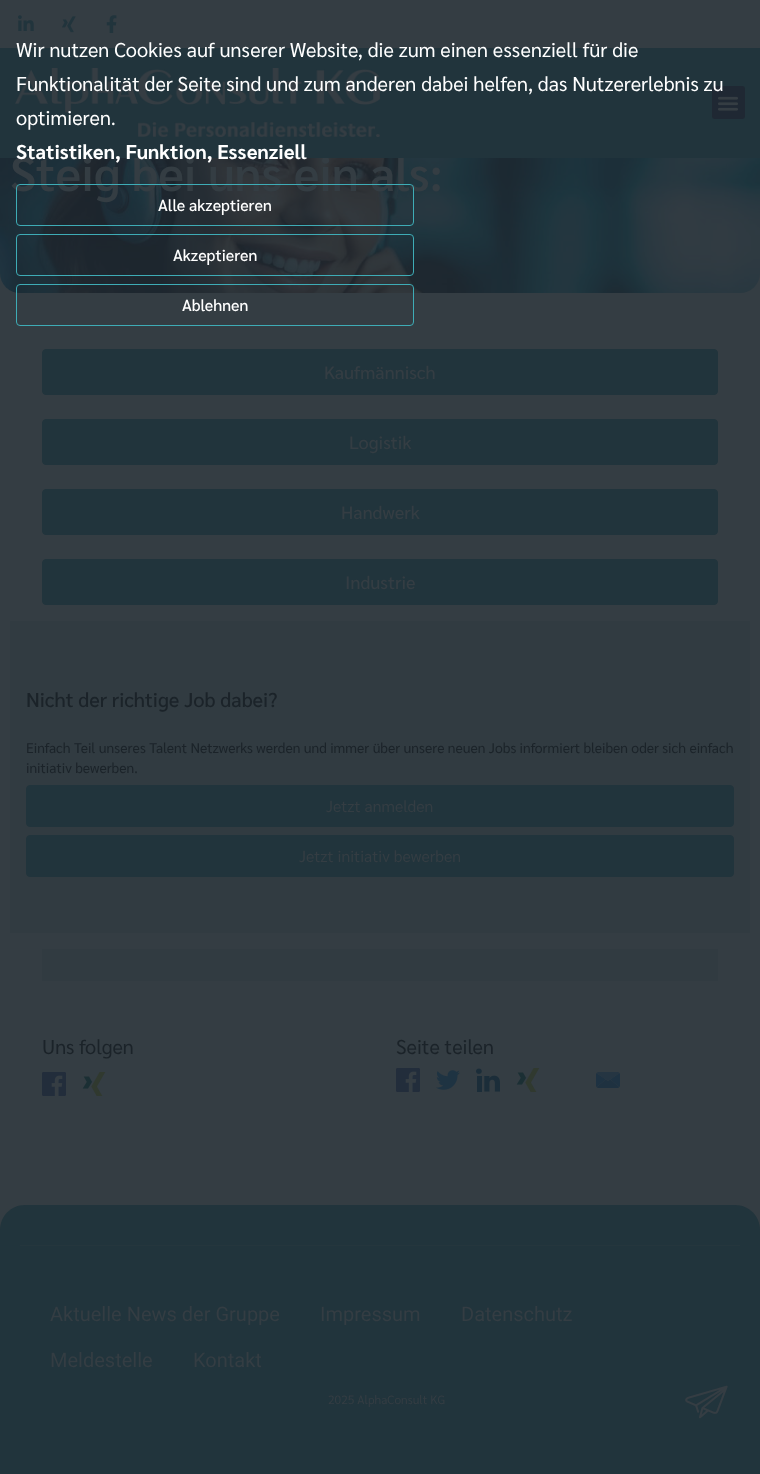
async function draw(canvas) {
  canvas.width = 760
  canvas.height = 1474
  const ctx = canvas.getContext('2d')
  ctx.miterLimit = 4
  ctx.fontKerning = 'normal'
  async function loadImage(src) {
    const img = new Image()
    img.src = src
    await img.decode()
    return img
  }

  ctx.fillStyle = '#343d43'
  ctx.fillRect(0, 0, 760, 1474)
  ctx.drawImage(await loadImage('image5.png'), 0, 158, 760, 135)
  ctx.font = '600 48px Sarabun'
  ctx.fillText('Steig bei uns ein als:', 10, 191)
  ctx.fillStyle = '#21343c'
  ctx.fillRect(0, 48, 760, 110)
  ctx.font = '20px Sarabun'
  ctx.fillStyle = '#fff'
  ctx.fillText('Wir nutzen Cookies auf unserer Website, die zum einen essenziell für die', 16, 57)
  ctx.drawImage(await loadImage('image3.png'), 15, 68, 365, 69)
  ctx.fillStyle = '#1f2833'
  ctx.beginPath()
  ctx.roundRect(712, 86, 33, 33, 3)
  ctx.fill()
  ctx.fillStyle = '#fff'
  ctx.fillText('Funktionalität der Seite sind und zum anderen dabei helfen, das Nutzererlebnis zu', 16, 91)
  ctx.fillText('optimieren.', 16, 125)
  ctx.font = 'bold 20px Sarabun'
  ctx.fillText('Statistiken, Funktion, Essenziell', 16, 159)
  ctx.beginPath()
  ctx.roundRect(16.5, 184.5, 397, 41, 3.5)
  ctx.strokeStyle = '#3eacb6'
  ctx.stroke()
  ctx.font = '500 16px Sarabun'
  ctx.fillText('Alle akzeptieren', 158, 211)
  ctx.beginPath()
  ctx.roundRect(16.5, 234.5, 397, 41, 3.5)
  ctx.stroke()
  ctx.fillText('Akzeptieren', 173, 261)
  ctx.beginPath()
  ctx.roundRect(16.5, 284.5, 397, 41, 3.5)
  ctx.stroke()
  ctx.fillText('Ablehnen', 182, 311)
  ctx.drawImage(await loadImage('image0.png'), 18, 15, 16, 16)
  ctx.drawImage(await loadImage('image1.png'), 62, 16, 14, 17)
  ctx.drawImage(await loadImage('image2.png'), 106, 15, 11, 18)
  ctx.drawImage(await loadImage('image4.png'), 717, 96, 22, 15)
  ctx.fillStyle = '#21343c'
  ctx.beginPath()
  ctx.roundRect(42.5, 349.5, 675, 45, 3.5)
  ctx.fill()
  ctx.strokeStyle = '#21343c'
  ctx.stroke()
  ctx.font = '500 18px Sarabun'
  ctx.fillStyle = '#343d43'
  ctx.fillText('Kaufmännisch', 324, 379)
  ctx.fillStyle = '#21343c'
  ctx.beginPath()
  ctx.roundRect(42.5, 419.5, 675, 45, 3.5)
  ctx.fill()
  ctx.stroke()
  ctx.fillStyle = '#343d43'
  ctx.fillText('Logistik', 349, 449)
  ctx.fillStyle = '#21343c'
  ctx.beginPath()
  ctx.roundRect(42.5, 489.5, 675, 45, 3.5)
  ctx.fill()
  ctx.stroke()
  ctx.fillStyle = '#343d43'
  ctx.fillText('Handwerk', 341, 519)
  ctx.fillStyle = '#21343c'
  ctx.beginPath()
  ctx.roundRect(42.5, 559.5, 675, 45, 3.5)
  ctx.fill()
  ctx.stroke()
  ctx.fillStyle = '#343d43'
  ctx.fillText('Industrie', 345, 589)
  ctx.fillStyle = '#313b41'
  ctx.fillRect(10, 621, 740, 312)
  ctx.font = '500 20px Sarabun'
  ctx.fillStyle = '#1b2329'
  ctx.fillText('Nicht der richtige Job dabei?', 26, 707)
  ctx.font = '14px Sarabun'
  ctx.fillText('Einfach Teil unseres Talent Netzwerks werden und immer über unsere neuen Jobs informiert bleiben oder sich einfach', 26, 753)
  ctx.fillText('initiativ bewerben.', 26, 773)
  ctx.fillStyle = '#21343c'
  ctx.beginPath()
  ctx.roundRect(26.5, 785.5, 707, 41, 3.5)
  ctx.fill()
  ctx.stroke()
  ctx.font = '16px Sarabun'
  ctx.fillStyle = '#343d43'
  ctx.fillText('Jetzt anmelden', 326, 812)
  ctx.fillStyle = '#21343c'
  ctx.beginPath()
  ctx.roundRect(26.5, 835.5, 707, 41, 3.5)
  ctx.fill()
  ctx.stroke()
  ctx.fillStyle = '#343d43'
  ctx.fillText('Jetzt initiativ bewerben', 299, 862)
  ctx.fillStyle = '#313b41'
  ctx.fillRect(42, 949, 676, 32)
  ctx.font = '20px Sarabun'
  ctx.fillStyle = '#1b2329'
  ctx.fillText('Uns folgen', 42, 1054)
  ctx.drawImage(await loadImage('image6.png'), 42, 1072, 24, 24)
  ctx.drawImage(await loadImage('image7.png'), 82, 1072, 24, 24)
  ctx.fillText('Seite teilen', 396, 1054)
  ctx.drawImage(await loadImage('image6.png'), 396, 1068, 24, 24)
  ctx.drawImage(await loadImage('image8.png'), 436, 1070, 24, 20)
  ctx.drawImage(await loadImage('image9.png'), 476, 1068, 24, 24)
  ctx.drawImage(await loadImage('image7.png'), 516, 1068, 24, 24)
  ctx.drawImage(await loadImage('image10.png'), 596, 1072, 24, 16)
  ctx.fillStyle = '#21343c'
  ctx.beginPath()
  ctx.moveTo(25, 1205)
  ctx.lineTo(735, 1205)
  ctx.bezierCurveTo(749, 1205, 760, 1216, 760, 1230)
  ctx.lineTo(760, 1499)
  ctx.lineTo(0, 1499)
  ctx.lineTo(0, 1230)
  ctx.bezierCurveTo(0, 1216, 11, 1205, 25, 1205)
  ctx.closePath()
  ctx.fill()
  ctx.drawImage(await loadImage('image11.png'), 685, 1385, 43, 34)
  ctx.fillStyle = '#25363d'
  ctx.fillRect(20, 1245, 720, 1)
  ctx.font = '20px Roboto'
  ctx.fillStyle = '#343d43'
  ctx.fillText('Aktuelle News der Gruppe', 50, 1321)
  ctx.fillText('Impressum', 320, 1321)
  ctx.fillText('Datenschutz', 461, 1321)
  ctx.fillText('Meldestelle', 50, 1367)
  ctx.fillText('Kontakt', 193, 1367)
  ctx.font = '12px Sarabun'
  ctx.fillText('2025 AlphaConsult KG', 328, 1404)
}

draw(document.querySelector('canvas'))
